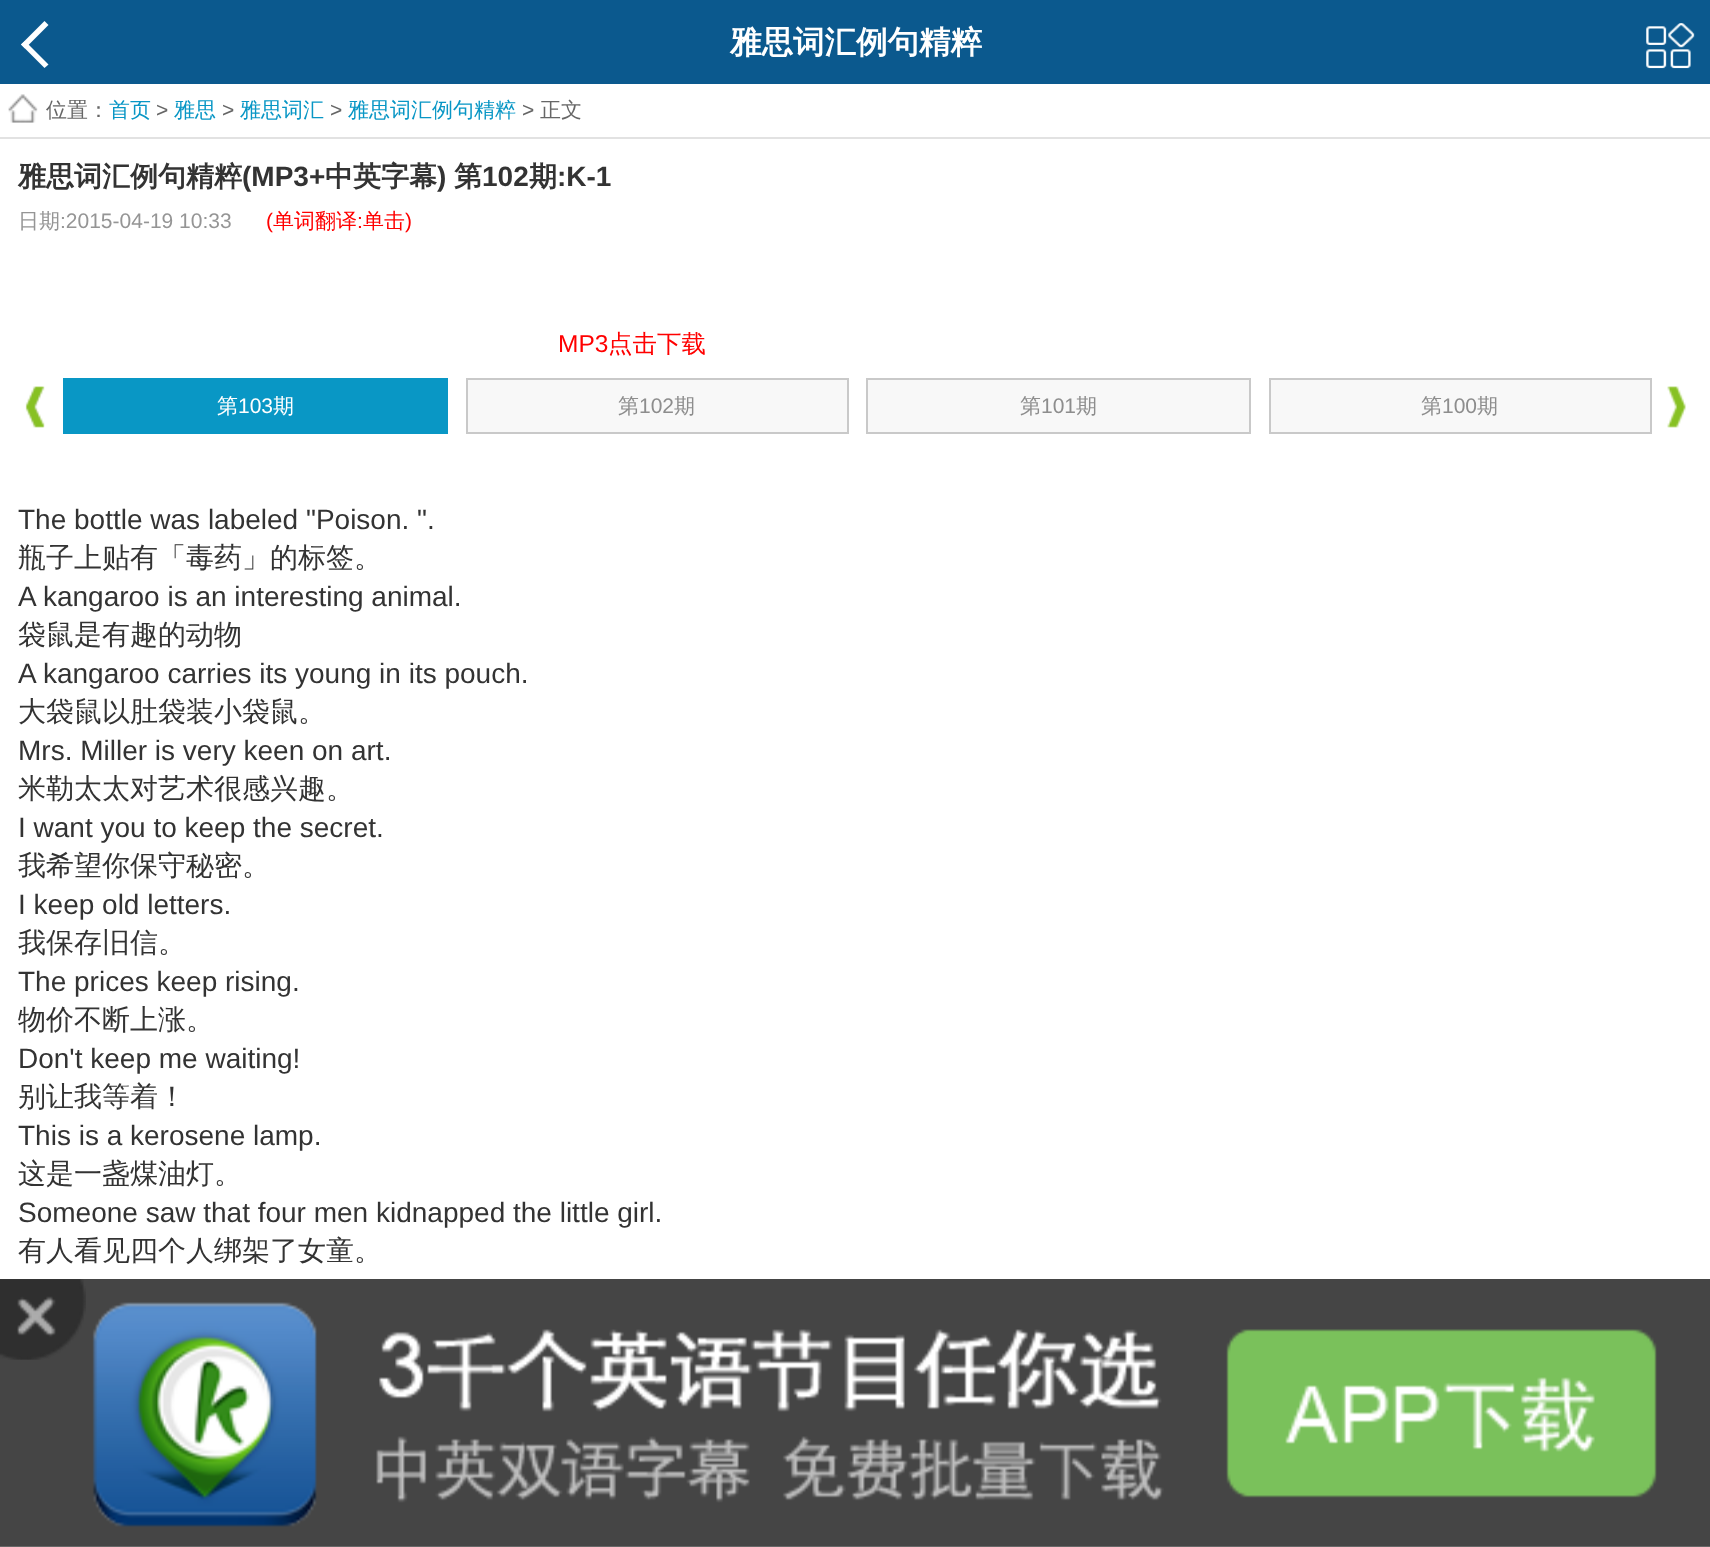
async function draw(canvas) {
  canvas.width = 1710
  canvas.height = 1547
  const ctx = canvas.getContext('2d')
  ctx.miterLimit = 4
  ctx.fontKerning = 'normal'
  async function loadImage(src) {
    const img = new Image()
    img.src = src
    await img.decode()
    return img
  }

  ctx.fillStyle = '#fff'
  ctx.fillRect(0, 0, 1710, 1547)
  ctx.fillStyle = '#0b598e'
  ctx.fillRect(0, 0, 1710, 84)
  ctx.fillStyle = '#fff'
  ctx.beginPath()
  ctx.moveTo(25, 41)
  ctx.lineTo(48.5, 64.5)
  ctx.lineTo(44.5, 68)
  ctx.lineTo(21, 44.5)
  ctx.closePath()
  ctx.fill()
  ctx.beginPath()
  ctx.moveTo(44.5, 21)
  ctx.lineTo(48.5, 25)
  ctx.lineTo(25, 48.5)
  ctx.lineTo(21, 44.5)
  ctx.closePath()
  ctx.fill()
  ctx.font = 'bold 31.5px WenQuanYi Zen Hei'
  ctx.fillText('雅思词汇例句精粹', 730, 53)
  ctx.drawImage(await loadImage('image0.png'), 1646, 23, 49, 46)
  ctx.drawImage(await loadImage('image1.png'), 8, 94, 30, 29)
  ctx.font = '500 21px WenQuanYi Zen Hei'
  ctx.fillStyle = '#666'
  ctx.fillText('位置：', 46, 117)
  ctx.fillStyle = '#0896c5'
  ctx.fillText('首页', 109, 117)
  ctx.font = '21px Liberation Sans'
  ctx.fillStyle = '#666'
  ctx.fillText('>', 156, 117)
  ctx.font = '500 21px WenQuanYi Zen Hei'
  ctx.fillStyle = '#0896c5'
  ctx.fillText('雅思', 174, 117)
  ctx.font = '21px Liberation Sans'
  ctx.fillStyle = '#666'
  ctx.fillText('>', 222, 117)
  ctx.font = '500 21px WenQuanYi Zen Hei'
  ctx.fillStyle = '#0896c5'
  ctx.fillText('雅思词汇', 240, 117)
  ctx.font = '21px Liberation Sans'
  ctx.fillStyle = '#666'
  ctx.fillText('>', 330, 117)
  ctx.font = '500 21px WenQuanYi Zen Hei'
  ctx.fillStyle = '#0896c5'
  ctx.fillText('雅思词汇例句精粹', 348, 117)
  ctx.font = '21px Liberation Sans'
  ctx.fillStyle = '#666'
  ctx.fillText('>', 522, 117)
  ctx.font = '500 21px WenQuanYi Zen Hei'
  ctx.fillText('正文', 540, 117)
  ctx.fillStyle = '#e2e2e2'
  ctx.fillRect(0, 137, 1710, 2)
  ctx.font = 'bold 28px WenQuanYi Zen Hei'
  ctx.fillStyle = '#333'
  ctx.fillText('雅思词汇例句精粹', 18, 186)
  ctx.font = 'bold 28px Liberation Sans'
  ctx.fillText('(MP3+', 242, 186)
  ctx.font = 'bold 28px WenQuanYi Zen Hei'
  ctx.fillText('中英字幕', 325, 186)
  ctx.font = 'bold 28px Liberation Sans'
  ctx.fillText(')', 437, 186)
  ctx.font = 'bold 28px WenQuanYi Zen Hei'
  ctx.fillText('第', 454, 186)
  ctx.font = 'bold 28px Liberation Sans'
  ctx.fillText('102', 482, 186)
  ctx.font = 'bold 28px WenQuanYi Zen Hei'
  ctx.fillText('期', 529, 186)
  ctx.font = 'bold 28px Liberation Sans'
  ctx.fillText(':K-1', 557, 186)
  ctx.font = '500 21px WenQuanYi Zen Hei'
  ctx.fillStyle = '#959595'
  ctx.fillText('日期', 18, 228)
  ctx.font = '21px Liberation Sans'
  ctx.fillText(':2015-04-19 10:33', 60, 228)
  ctx.fillStyle = '#f00'
  ctx.fillText('(', 266, 228)
  ctx.font = '500 21px WenQuanYi Zen Hei'
  ctx.fillText('单词翻译', 273, 228)
  ctx.font = '21px Liberation Sans'
  ctx.fillText(':', 357, 228)
  ctx.font = '500 21px WenQuanYi Zen Hei'
  ctx.fillText('单击', 363, 228)
  ctx.font = '21px Liberation Sans'
  ctx.fillText(')', 405, 228)
  ctx.font = '24.5px Liberation Sans'
  ctx.fillText('MP3', 558, 352)
  ctx.font = '500 24.5px WenQuanYi Zen Hei'
  ctx.fillText('点击下载', 608, 352)
  ctx.drawImage(await loadImage('image2.png'), 25, 386, 20, 42)
  ctx.fillStyle = '#0997c5'
  ctx.fillRect(63, 378, 385, 56)
  ctx.font = '500 21px WenQuanYi Zen Hei'
  ctx.fillStyle = '#fff'
  ctx.fillText('第', 217, 413)
  ctx.font = '21px Liberation Sans'
  ctx.fillText('103', 238, 413)
  ctx.font = '500 21px WenQuanYi Zen Hei'
  ctx.fillText('期', 273, 413)
  ctx.fillStyle = '#f8f8f8'
  ctx.beginPath()
  ctx.rect(467, 379, 381, 54)
  ctx.fill()
  ctx.strokeStyle = '#c9c9c9'
  ctx.lineWidth = 2
  ctx.stroke()
  ctx.fillStyle = '#8d8d8d'
  ctx.fillText('第', 618, 413)
  ctx.font = '21px Liberation Sans'
  ctx.fillText('102', 639, 413)
  ctx.font = '500 21px WenQuanYi Zen Hei'
  ctx.fillText('期', 674, 413)
  ctx.fillStyle = '#f8f8f8'
  ctx.beginPath()
  ctx.rect(867, 379, 383, 54)
  ctx.fill()
  ctx.stroke()
  ctx.fillStyle = '#8d8d8d'
  ctx.fillText('第', 1020, 413)
  ctx.font = '21px Liberation Sans'
  ctx.fillText('101', 1041, 413)
  ctx.font = '500 21px WenQuanYi Zen Hei'
  ctx.fillText('期', 1076, 413)
  ctx.fillStyle = '#f8f8f8'
  ctx.beginPath()
  ctx.rect(1270, 379, 381, 54)
  ctx.fill()
  ctx.stroke()
  ctx.fillStyle = '#8d8d8d'
  ctx.fillText('第', 1421, 413)
  ctx.font = '21px Liberation Sans'
  ctx.fillText('100', 1442, 413)
  ctx.font = '500 21px WenQuanYi Zen Hei'
  ctx.fillText('期', 1477, 413)
  ctx.drawImage(await loadImage('image3.png'), 1667, 386, 19, 42)
  ctx.font = '28px Liberation Sans'
  ctx.fillStyle = '#333'
  ctx.fillText('The bottle was labeled "Poison. ".', 18, 529)
  ctx.font = '500 28px WenQuanYi Zen Hei'
  ctx.fillText('瓶子上贴有「毒药」的标签。', 18, 567)
  ctx.font = '28px Liberation Sans'
  ctx.fillText('A kangaroo is an interesting animal.', 18, 606)
  ctx.font = '500 28px WenQuanYi Zen Hei'
  ctx.fillText('袋鼠是有趣的动物', 18, 644)
  ctx.font = '28px Liberation Sans'
  ctx.fillText('A kangaroo carries its young in its pouch.', 18, 683)
  ctx.font = '500 28px WenQuanYi Zen Hei'
  ctx.fillText('大袋鼠以肚袋装小袋鼠。', 18, 721)
  ctx.font = '28px Liberation Sans'
  ctx.fillText('Mrs. Miller is very keen on art.', 18, 760)
  ctx.font = '500 28px WenQuanYi Zen Hei'
  ctx.fillText('米勒太太对艺术很感兴趣。', 18, 798)
  ctx.font = '28px Liberation Sans'
  ctx.fillText('I want you to keep the secret.', 18, 837)
  ctx.font = '500 28px WenQuanYi Zen Hei'
  ctx.fillText('我希望你保守秘密。', 18, 875)
  ctx.font = '28px Liberation Sans'
  ctx.fillText('I keep old letters.', 18, 914)
  ctx.font = '500 28px WenQuanYi Zen Hei'
  ctx.fillText('我保存旧信。', 18, 952)
  ctx.font = '28px Liberation Sans'
  ctx.fillText('The prices keep rising.', 18, 991)
  ctx.save()
  ctx.beginPath()
  ctx.rect(18, 501, 1676, 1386)
  ctx.clip()
  ctx.font = '500 28px WenQuanYi Zen Hei'
  ctx.fillText('物价不断上涨。', 18, 1029)
  ctx.restore()
  ctx.fillText('Don\'t keep me waiting!', 18, 1068)
  ctx.font = '500 28px WenQuanYi Zen Hei'
  ctx.fillText('别让我等着！', 18, 1106)
  ctx.font = '28px Liberation Sans'
  ctx.fillText('This is a kerosene lamp.', 18, 1145)
  ctx.font = '500 28px WenQuanYi Zen Hei'
  ctx.fillText('这是一盏煤油灯。', 18, 1183)
  ctx.font = '28px Liberation Sans'
  ctx.fillText('Someone saw that four men kidnapped the little girl.', 18, 1222)
  ctx.font = '500 28px WenQuanYi Zen Hei'
  ctx.fillText('有人看见四个人绑架了女童。', 18, 1260)
  ctx.drawImage(await loadImage('image4.png'), 0, 1279, 1710, 268)
  ctx.drawImage(await loadImage('image5.png'), 0, 1279, 86, 81)
}

draw(document.querySelector('canvas'))
